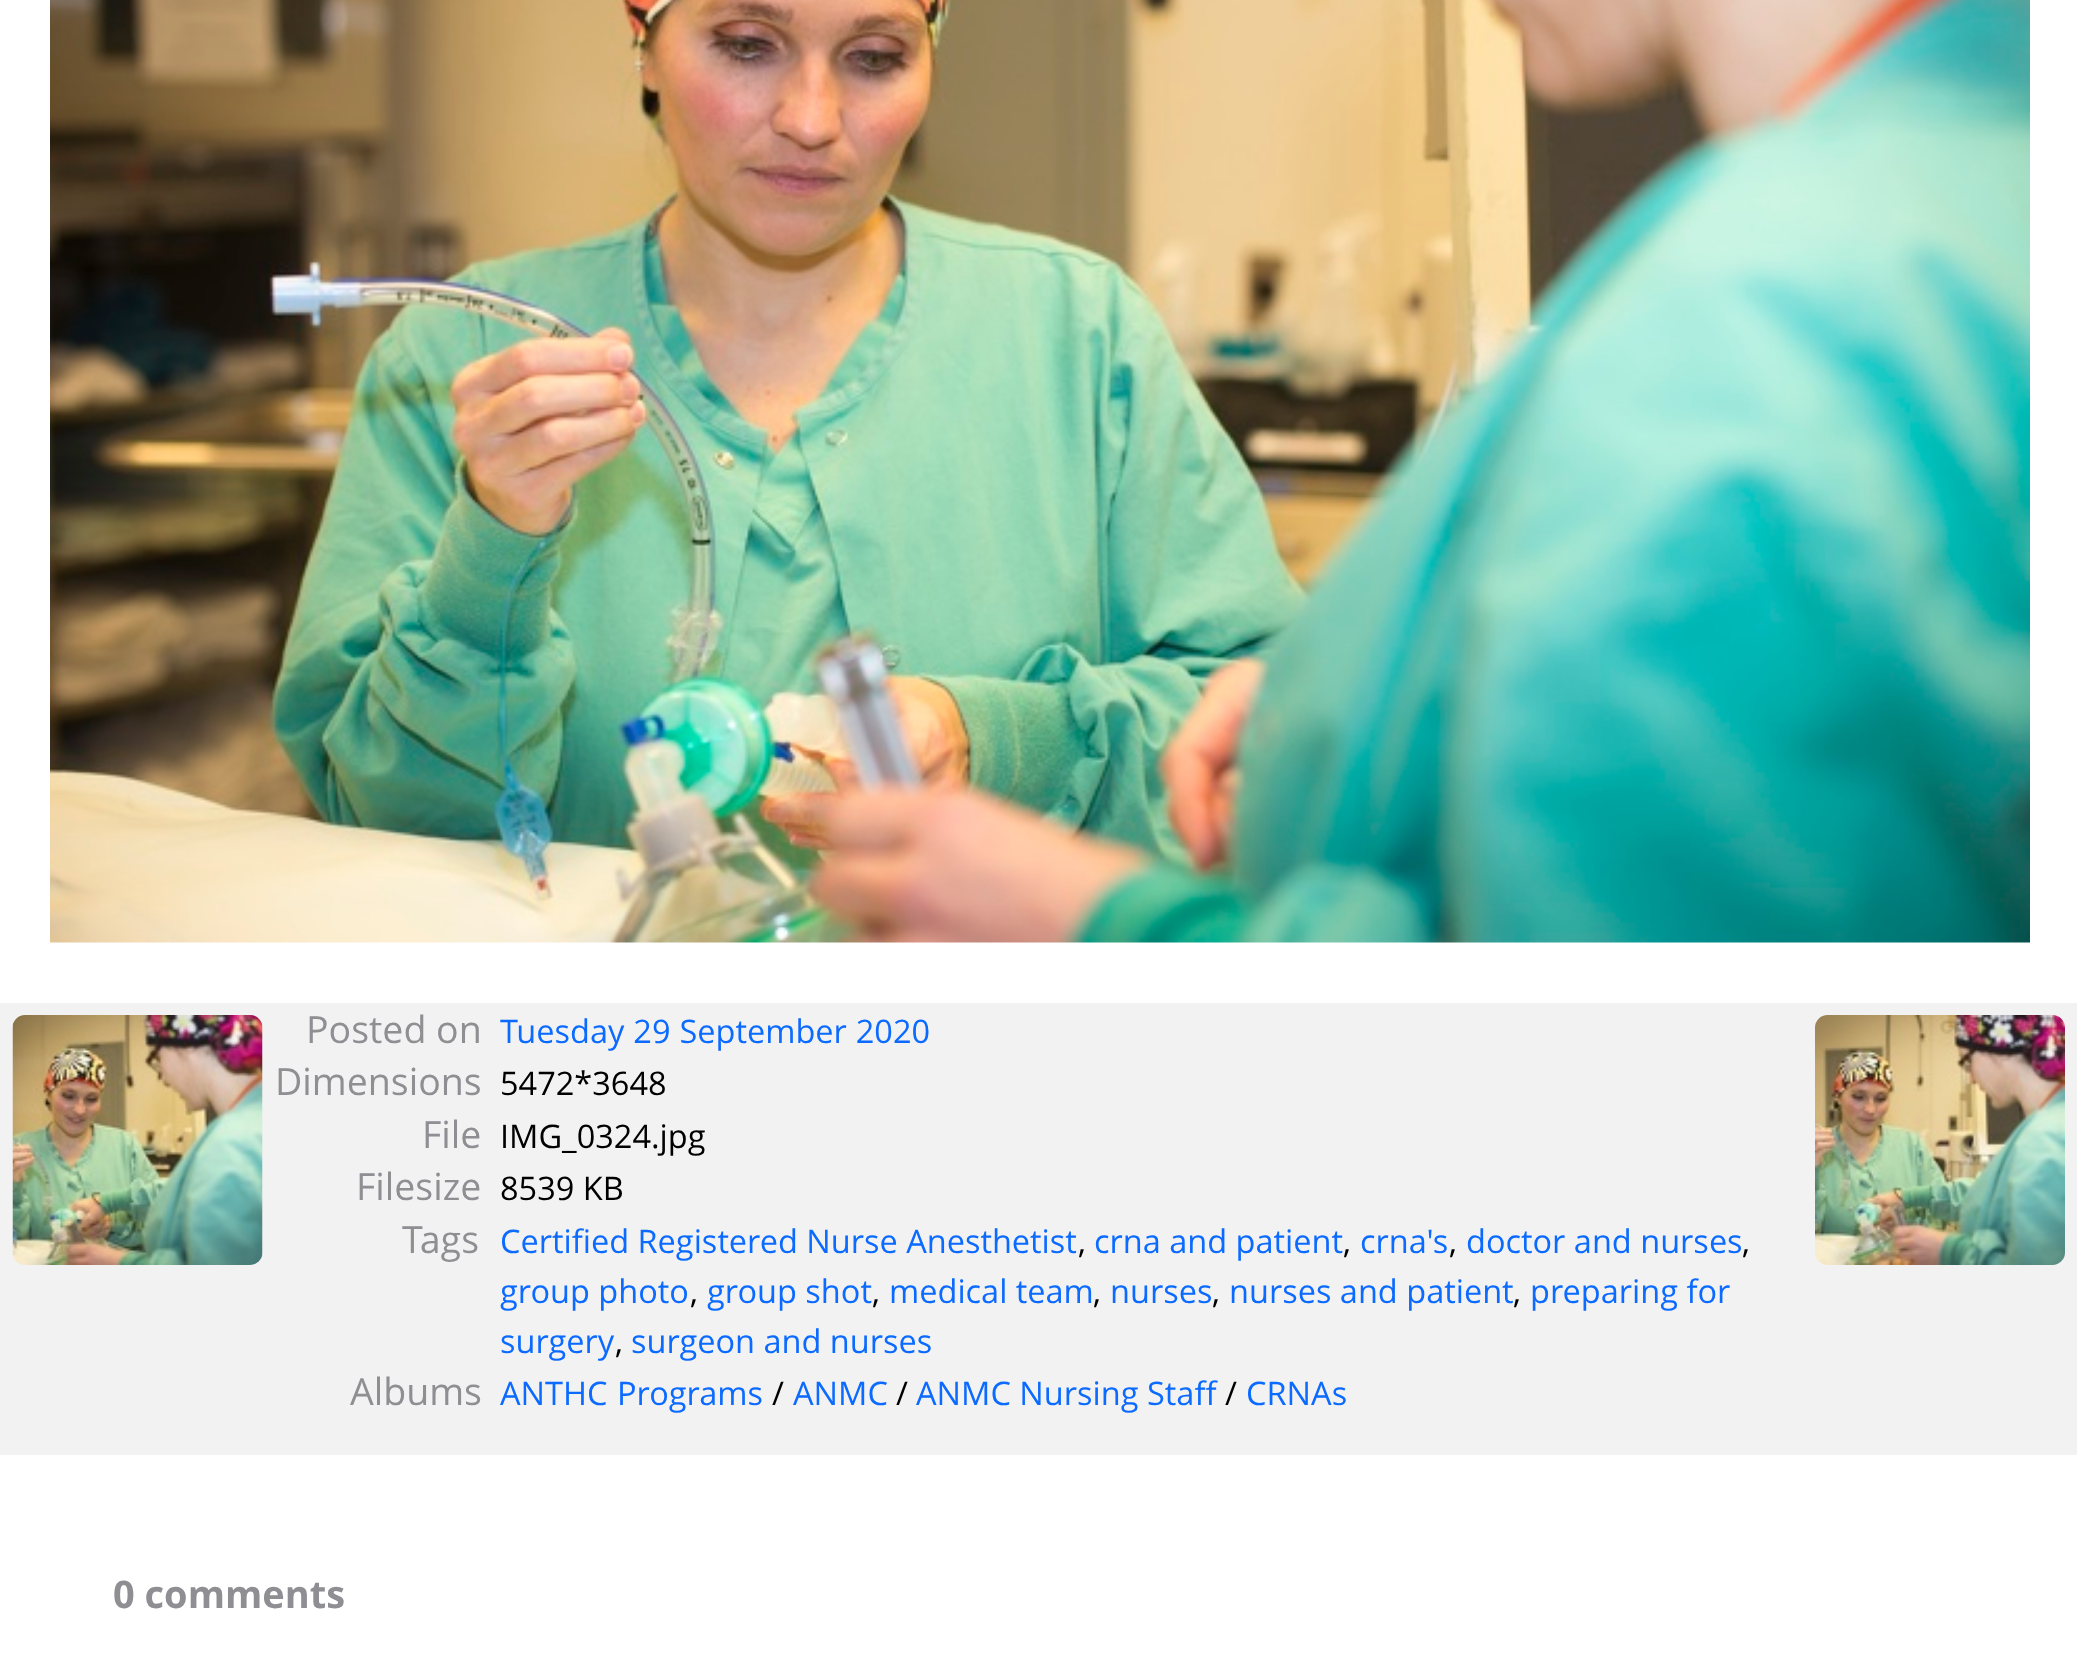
async function draw(canvas) {
  canvas.width = 2077
  canvas.height = 1676
  const ctx = canvas.getContext('2d')
  ctx.miterLimit = 4
  ctx.fontKerning = 'normal'
  async function loadImage(src) {
    const img = new Image()
    img.src = src
    await img.decode()
    return img
  }

  ctx.fillStyle = '#fff'
  ctx.fillRect(0, 0, 2077, 1676)
  ctx.drawImage(await loadImage('image0.png'), 50, 0, 1980, 943)
  ctx.fillStyle = '#f2f2f2'
  ctx.fillRect(0, 1003, 2077, 452)
  ctx.font = '37.5px Open Sans'
  ctx.fillStyle = '#8e8e93'
  ctx.fillText('Posted on', 306, 1043)
  ctx.wordSpacing = '0.5px'
  ctx.font = '32.5px Open Sans'
  ctx.fillStyle = '#0b6aff'
  ctx.fillText('Tuesday 29 September 2020', 500, 1043)
  ctx.wordSpacing = '0px'
  ctx.font = '37.5px Open Sans'
  ctx.fillStyle = '#8e8e93'
  ctx.fillText('Dimensions', 275, 1095)
  ctx.font = '32.5px Open Sans'
  ctx.fillStyle = '#000'
  ctx.fillText('5472*3648', 500, 1095)
  ctx.font = '37.5px Open Sans'
  ctx.fillStyle = '#8e8e93'
  ctx.fillText('File', 422, 1148)
  ctx.font = '32.5px Open Sans'
  ctx.fillStyle = '#000'
  ctx.fillText('IMG_0324.jpg', 500, 1148)
  ctx.font = '37.5px Open Sans'
  ctx.fillStyle = '#8e8e93'
  ctx.fillText('Filesize', 356, 1200)
  ctx.font = '32.5px Open Sans'
  ctx.fillStyle = '#000'
  ctx.fillText('8539 KB', 500, 1200)
  ctx.font = '37.5px Open Sans'
  ctx.fillStyle = '#8e8e93'
  ctx.fillText('Tags', 402, 1253)
  ctx.font = '32.5px Open Sans'
  ctx.fillStyle = '#0b6aff'
  ctx.fillText('Certified Registered Nurse Anesthetist', 500, 1253)
  ctx.fillStyle = '#000'
  ctx.fillText(',', 1078, 1253)
  ctx.fillStyle = '#0b6aff'
  ctx.fillText('crna and patient', 1094, 1253)
  ctx.fillStyle = '#000'
  ctx.fillText(',', 1343, 1253)
  ctx.fillStyle = '#0b6aff'
  ctx.fillText('crna\'s', 1360, 1253)
  ctx.fillStyle = '#000'
  ctx.fillText(',', 1449, 1253)
  ctx.fillStyle = '#0b6aff'
  ctx.fillText('doctor and nurses', 1466, 1253)
  ctx.fillStyle = '#000'
  ctx.fillText(',', 1742, 1253)
  ctx.fillStyle = '#0b6aff'
  ctx.fillText('group photo', 500, 1303)
  ctx.fillStyle = '#000'
  ctx.fillText(',', 690, 1303)
  ctx.fillStyle = '#0b6aff'
  ctx.fillText('group shot', 707, 1303)
  ctx.fillStyle = '#000'
  ctx.fillText(',', 872, 1303)
  ctx.fillStyle = '#0b6aff'
  ctx.fillText('medical team', 889, 1303)
  ctx.fillStyle = '#000'
  ctx.fillText(',', 1093, 1303)
  ctx.fillStyle = '#0b6aff'
  ctx.fillText('nurses', 1110, 1303)
  ctx.fillStyle = '#000'
  ctx.fillText(',', 1212, 1303)
  ctx.fillStyle = '#0b6aff'
  ctx.fillText('nurses and patient', 1229, 1303)
  ctx.fillStyle = '#000'
  ctx.fillText(',', 1513, 1303)
  ctx.fillStyle = '#0b6aff'
  ctx.fillText('preparing for', 1530, 1303)
  ctx.fillText('surgery', 500, 1353)
  ctx.fillStyle = '#000'
  ctx.fillText(',', 615, 1353)
  ctx.fillStyle = '#0b6aff'
  ctx.fillText('surgeon and nurses', 631, 1353)
  ctx.font = '37.5px Open Sans'
  ctx.fillStyle = '#8e8e93'
  ctx.fillText('Albums', 350, 1405)
  ctx.wordSpacing = '1px'
  ctx.font = '32.5px Open Sans'
  ctx.fillStyle = '#0b6aff'
  ctx.fillText('ANTHC Programs', 500, 1405)
  ctx.wordSpacing = '0px'
  ctx.fillStyle = '#000'
  ctx.fillText('/', 772, 1405)
  ctx.fillStyle = '#0b6aff'
  ctx.fillText('ANMC', 793, 1405)
  ctx.fillStyle = '#000'
  ctx.fillText('/', 896, 1405)
  ctx.fillStyle = '#0b6aff'
  ctx.fillText('ANMC Nursing Staff', 916, 1405)
  ctx.fillStyle = '#000'
  ctx.fillText('/', 1225, 1405)
  ctx.fillStyle = '#0b6aff'
  ctx.fillText('CRNAs', 1246, 1405)
  ctx.drawImage(await loadImage('image1.png'), 12, 1015, 251, 250)
  ctx.drawImage(await loadImage('image2.png'), 1815, 1015, 250, 250)
  ctx.font = 'bold 38px Open Sans'
  ctx.fillStyle = '#8e8e93'
  ctx.fillText('0 comments', 113, 1608)
}

draw(document.querySelector('canvas'))
